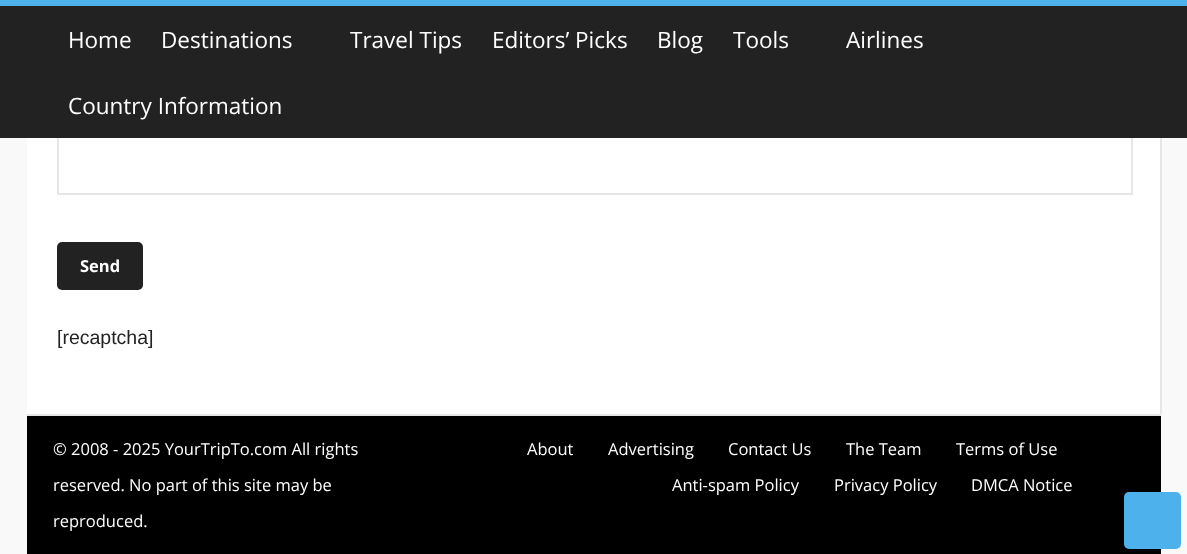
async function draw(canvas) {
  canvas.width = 1187
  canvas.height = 554
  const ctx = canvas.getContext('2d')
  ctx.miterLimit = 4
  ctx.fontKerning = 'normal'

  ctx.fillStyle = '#f9f9f9'
  ctx.fillRect(0, 0, 1187, 554)
  ctx.fillStyle = '#fff'
  ctx.fillRect(27, 138, 1133, 276)
  ctx.strokeStyle = '#e6e6e6'
  ctx.lineWidth = 2
  ctx.strokeRect(58, -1, 1074, 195)
  ctx.fillStyle = '#222'
  ctx.fillRect(0, 6, 1187, 132)
  ctx.fillStyle = '#4db2ec'
  ctx.fillRect(0, 0, 1187, 6)
  ctx.font = '22.5px Open Sans'
  ctx.fillStyle = '#fff'
  ctx.fillText('Home', 68, 48)
  ctx.fillText('Destinations', 161, 48)
  ctx.fillText('Travel Tips', 350, 48)
  ctx.fillText('Editors’ Picks', 492, 48)
  ctx.fillText('Blog', 657, 48)
  ctx.fillText('Tools', 733, 48)
  ctx.fillText('Airlines', 846, 48)
  ctx.fillText('Country Information', 68, 114)
  ctx.fillStyle = '#e6e6e6'
  ctx.fillRect(27, 414, 1134, 2)
  ctx.fillStyle = '#222'
  ctx.beginPath()
  ctx.roundRect(57, 242, 86, 48, 5)
  ctx.fill()
  ctx.font = 'bold 16.5px Open Sans'
  ctx.fillStyle = '#fff'
  ctx.fillText('Send', 80, 272)
  ctx.font = '19.5px Liberation Sans'
  ctx.fillStyle = '#222'
  ctx.fillText('[recaptcha]', 57, 344)
  ctx.fillStyle = '#e6e6e6'
  ctx.fillRect(1160, 138, 2, 276)
  ctx.fillStyle = '#000'
  ctx.fillRect(27, 416, 1134, 138)
  ctx.font = '16.5px Open Sans'
  ctx.fillStyle = '#fff'
  ctx.fillText('© 2008 - 2025 YourTripTo.com All rights', 53, 455)
  ctx.fillText('reserved. No part of this site may be', 53, 491)
  ctx.fillText('reproduced.', 53, 527)
  ctx.fillText('About', 527, 455)
  ctx.fillText('Advertising', 608, 455)
  ctx.fillText('Contact Us', 728, 455)
  ctx.fillText('The Team', 846, 455)
  ctx.fillText('Terms of Use', 956, 455)
  ctx.fillText('Anti-spam Policy', 672, 491)
  ctx.fillText('Privacy Policy', 834, 491)
  ctx.fillText('DMCA Notice', 971, 491)
  ctx.fillStyle = '#4db2ec'
  ctx.beginPath()
  ctx.roundRect(1124, 492, 57, 57, 5)
  ctx.fill()
}

draw(document.querySelector('canvas'))
